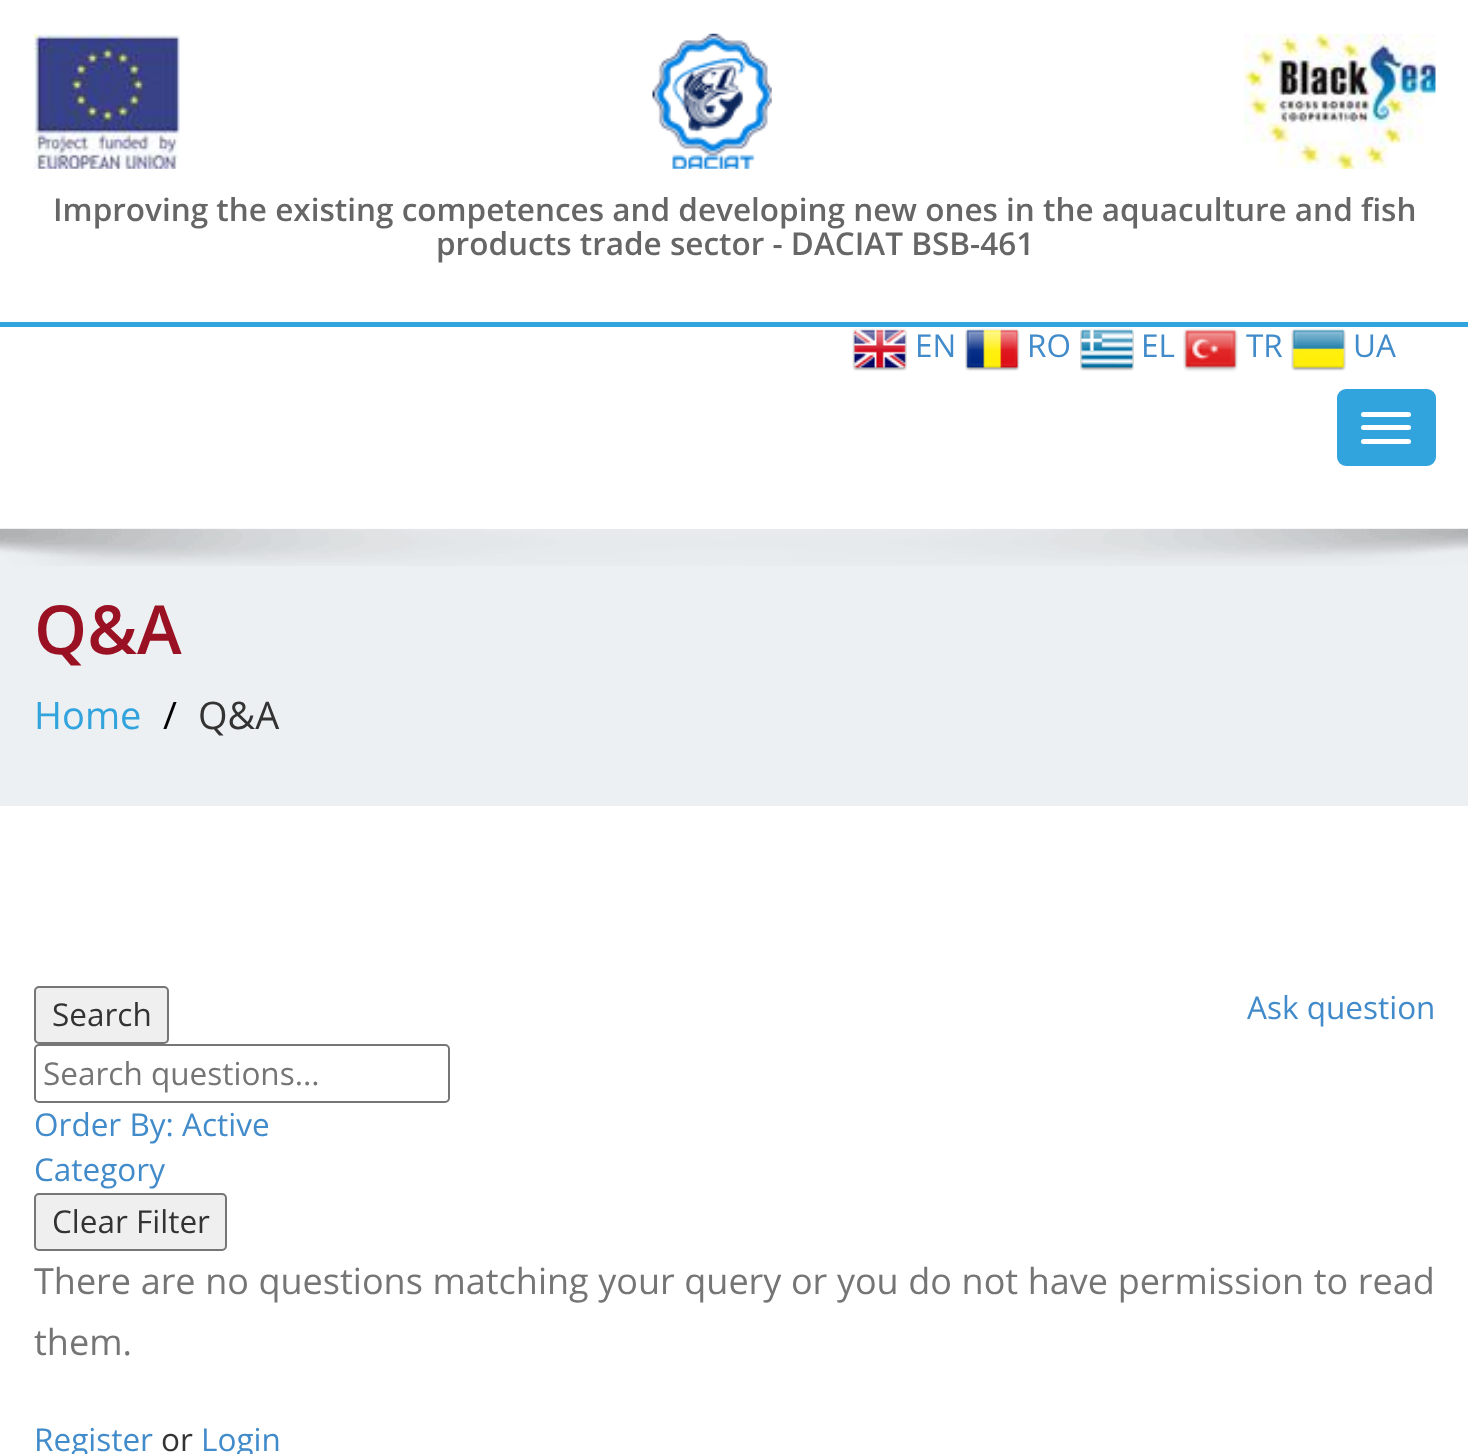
async function draw(canvas) {
  canvas.width = 1468
  canvas.height = 1454
  const ctx = canvas.getContext('2d')
  ctx.miterLimit = 4
  ctx.fontKerning = 'normal'
  async function loadImage(src) {
    const img = new Image()
    img.src = src
    await img.decode()
    return img
  }

  ctx.fillStyle = '#fff'
  ctx.fillRect(0, 0, 1468, 1454)
  ctx.drawImage(await loadImage('image0.png'), 33, 33, 147, 136)
  ctx.drawImage(await loadImage('image1.png'), 652, 33, 120, 136)
  ctx.drawImage(await loadImage('image2.png'), 1244, 33, 192, 136)
  ctx.font = '600 31.5px Open Sans'
  ctx.fillStyle = '#666'
  ctx.fillText('Improving the existing competences and developing new ones in the aquaculture and fish', 53, 221)
  ctx.fillText('products trade sector - DACIAT BSB-461', 436, 255)
  ctx.drawImage(await loadImage('image3.png'), 852, 328, 55, 43)
  ctx.font = '31.5px Open Sans'
  ctx.fillStyle = '#428bca'
  ctx.fillText('EN', 915, 357)
  ctx.drawImage(await loadImage('image4.png'), 965, 328, 55, 43)
  ctx.fillText('RO', 1027, 357)
  ctx.drawImage(await loadImage('image5.png'), 1080, 328, 54, 43)
  ctx.fillText('EL', 1141, 357)
  ctx.drawImage(await loadImage('image6.png'), 1183, 328, 55, 44)
  ctx.fillText('TR', 1246, 357)
  ctx.drawImage(await loadImage('image7.png'), 1291, 328, 55, 43)
  ctx.fillText('UA', 1353, 357)
  ctx.fillStyle = '#31a3dd'
  ctx.fillRect(0, 322, 1468, 5)
  ctx.beginPath()
  ctx.roundRect(1338, 390, 97, 75, 8)
  ctx.fill()
  ctx.strokeStyle = '#31a3dd'
  ctx.lineWidth = 2
  ctx.stroke()
  ctx.fillStyle = '#fff'
  ctx.beginPath()
  ctx.roundRect(1361, 412, 50, 5, 2.5)
  ctx.fill()
  ctx.beginPath()
  ctx.roundRect(1361, 425, 50, 5, 2.5)
  ctx.fill()
  ctx.beginPath()
  ctx.roundRect(1361, 439, 50, 5, 2.5)
  ctx.fill()
  ctx.fillStyle = '#edf0f2'
  ctx.fillRect(0, 529, 1468, 277)
  ctx.drawImage(await loadImage('image8.png'), 0, 528, 1468, 38)
  ctx.font = '600 67.5px Open Sans'
  ctx.fillStyle = '#912'
  ctx.fillText('Q&A', 34, 654)
  ctx.font = '38px Open Sans'
  ctx.fillStyle = '#31a3dd'
  ctx.fillText('Home', 34, 729)
  ctx.fillStyle = '#000'
  ctx.fillText('/', 163, 729)
  ctx.fillStyle = '#333'
  ctx.fillText('Q&A', 198, 729)
  ctx.fillStyle = '#efefef'
  ctx.beginPath()
  ctx.roundRect(35, 987, 133, 56, 4)
  ctx.fill()
  ctx.strokeStyle = '#767676'
  ctx.stroke()
  ctx.font = '31.5px Open Sans'
  ctx.fillStyle = '#333'
  ctx.fillText('Search', 52, 1026)
  ctx.beginPath()
  ctx.roundRect(35, 1045, 414, 57, 4)
  ctx.stroke()
  ctx.fillStyle = '#757575'
  ctx.fillText('Search questions...', 43, 1085)
  ctx.fillStyle = '#428bca'
  ctx.fillText('Ask question', 1247, 1019)
  ctx.fillText('Order By: Active', 34, 1136)
  ctx.fillText('Category', 34, 1181)
  ctx.fillStyle = '#efefef'
  ctx.beginPath()
  ctx.roundRect(35, 1194, 191, 56, 4)
  ctx.fill()
  ctx.stroke()
  ctx.fillStyle = '#333'
  ctx.fillText('Clear Filter', 52, 1233)
  ctx.wordSpacing = '0.25px'
  ctx.font = '36px Open Sans'
  ctx.fillStyle = '#757575'
  ctx.fillText('There are no questions matching your query or you do not have permission to read', 34, 1294)
  ctx.wordSpacing = '0px'
  ctx.fillText('them.', 34, 1355)
  ctx.font = '31.5px Open Sans'
  ctx.fillStyle = '#428bca'
  ctx.fillText('Register', 34, 1451)
  ctx.fillStyle = '#333'
  ctx.fillText('or', 161, 1451)
  ctx.fillStyle = '#428bca'
  ctx.fillText('Login', 201, 1451)
}

draw(document.querySelector('canvas'))
